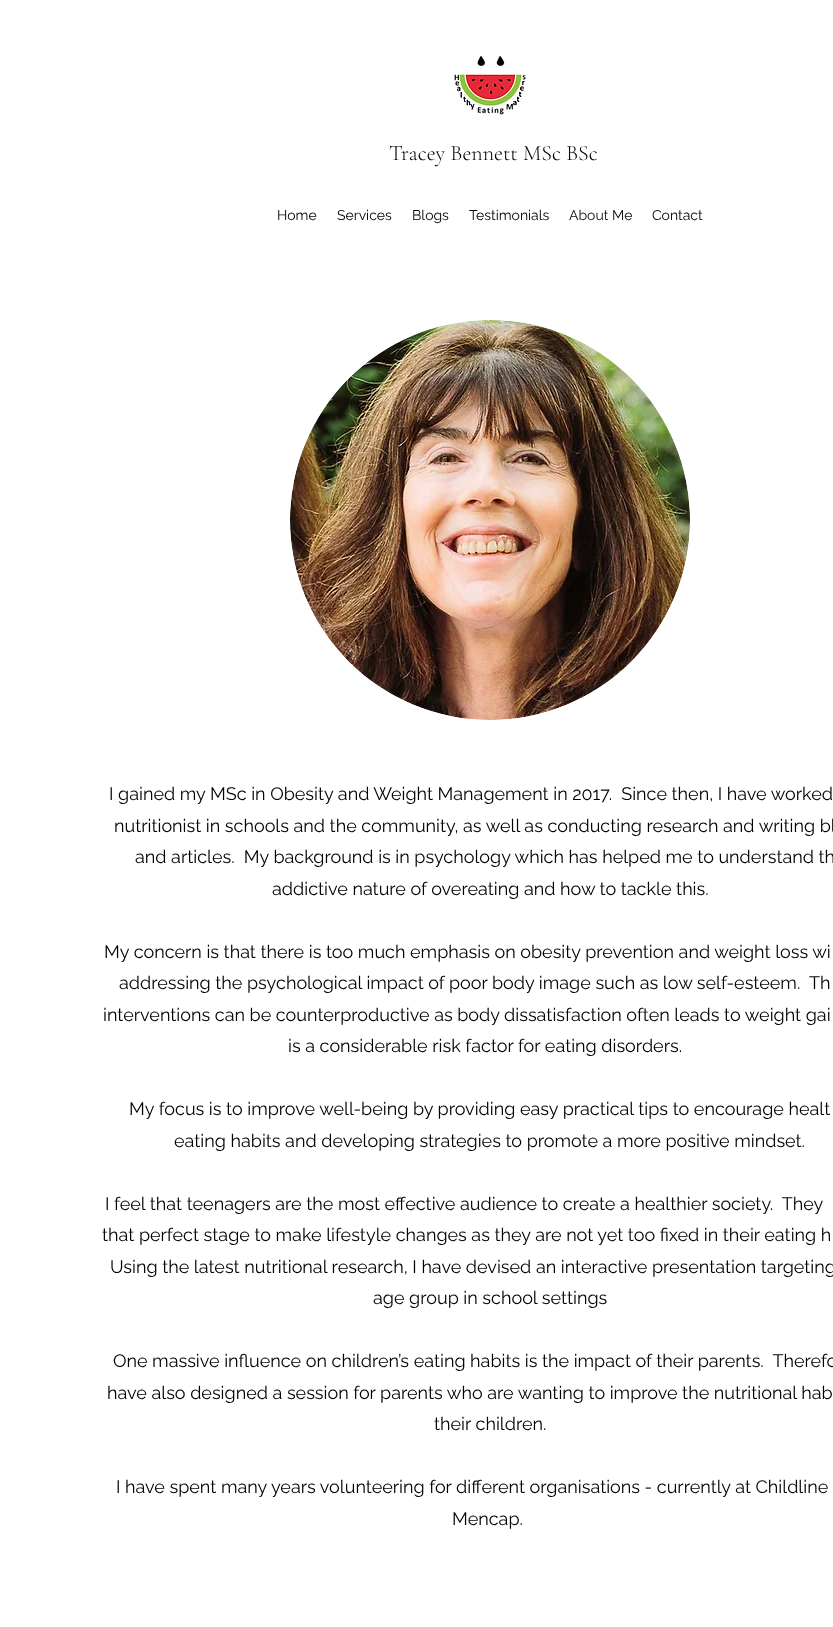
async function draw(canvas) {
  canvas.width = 833
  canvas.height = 1627
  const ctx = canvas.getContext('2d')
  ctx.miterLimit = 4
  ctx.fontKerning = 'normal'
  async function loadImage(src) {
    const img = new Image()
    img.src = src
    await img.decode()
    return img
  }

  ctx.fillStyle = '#fff'
  ctx.fillRect(0, 0, 833, 1627)
  ctx.drawImage(await loadImage('image0.png'), 454, 55, 72, 60)
  ctx.font = '300 22px Cormorant Garamond'
  ctx.fillStyle = '#000'
  ctx.fillText('Tracey Bennett MSc BSc', 389, 160)
  ctx.font = '14px Raleway'
  ctx.fillText('Home', 277, 220)
  ctx.fillText('Services', 337, 220)
  ctx.fillText('Blogs', 412, 220)
  ctx.fillText('Testimonials', 469, 220)
  ctx.fillStyle = '#0d0d0d'
  ctx.fillText('About Me', 569, 220)
  ctx.fillStyle = '#000'
  ctx.fillText('Contact', 652, 220)
  ctx.drawImage(await loadImage('image1.png'), 290, 320, 400, 400)
  ctx.font = '18px Raleway'
  ctx.fillText('I gained my MSc in Obesity and Weight Management in 2017.  Since then, I have worked', 109, 800)
  ctx.fillText('nutritionist in schools and the community, as well as conducting research and writing bl', 114, 832)
  ctx.fillText('and articles.  My background is in psychology which has helped me to understand th', 135, 863)
  ctx.fillText('addictive nature of overeating and how to tackle this.', 272, 895)
  ctx.fillText('My concern is that there is too much emphasis on obesity prevention and weight loss wi', 104, 958)
  ctx.fillText('addressing the psychological impact of poor body image such as low self-esteem.  Th', 119, 989)
  ctx.fillText('interventions can be counterproductive as body dissatisfaction often leads to weight gai', 103, 1021)
  ctx.fillText('is a considerable risk factor for eating disorders.', 288, 1052)
  ctx.fillText('My focus is to improve well-being by providing easy practical tips to encourage healt', 129, 1115)
  ctx.fillText('eating habits and developing strategies to promote a more positive mindset.', 174, 1147)
  ctx.fillText('I feel that teenagers are the most effective audience to create a healthier society.  They', 105, 1210)
  ctx.fillText('that perfect stage to make lifestyle changes as they are not yet too fixed in their eating h', 102, 1241)
  ctx.fillText('Using the latest nutritional research, I have devised an interactive presentation targeting', 110, 1273)
  ctx.fillText('age group in school settings', 373, 1304)
  ctx.fillText('One massive influence on children’s eating habits is the impact of their parents.  Therefo', 113, 1367)
  ctx.fillText('have also designed a session for parents who are wanting to improve the nutritional hab', 107, 1399)
  ctx.fillText('their children.', 434, 1430)
  ctx.fillText('I have spent many years volunteering for different organisations - currently at Childline', 116, 1493)
  ctx.fillText('Mencap.', 452, 1525)
}

draw(document.querySelector('canvas'))
